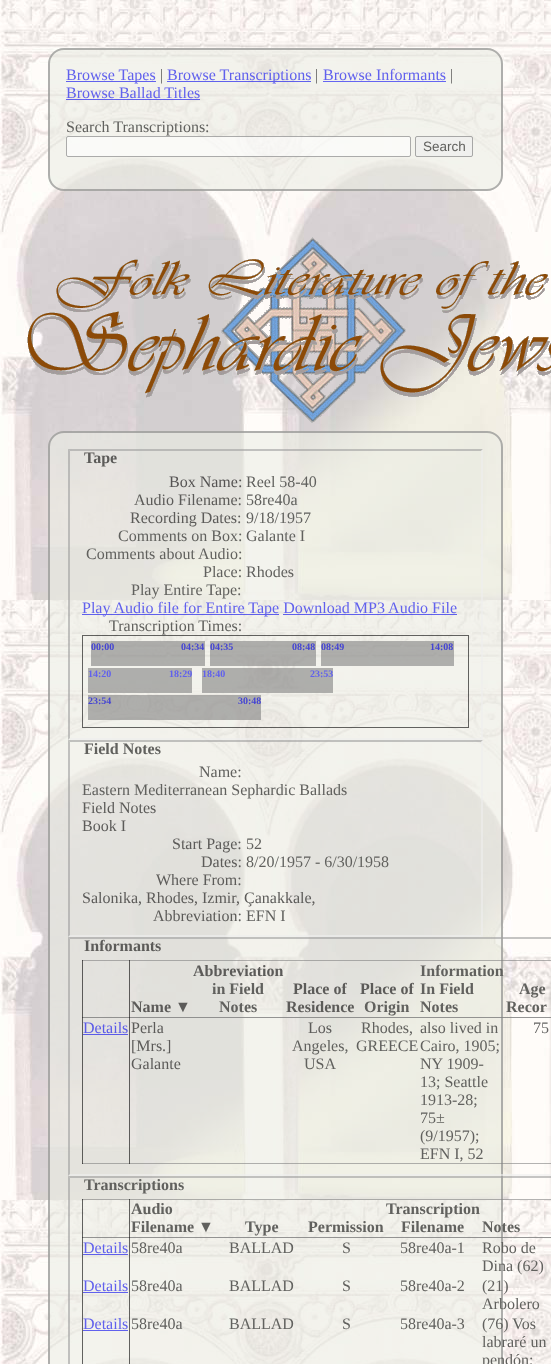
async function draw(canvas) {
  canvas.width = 551
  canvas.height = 1364
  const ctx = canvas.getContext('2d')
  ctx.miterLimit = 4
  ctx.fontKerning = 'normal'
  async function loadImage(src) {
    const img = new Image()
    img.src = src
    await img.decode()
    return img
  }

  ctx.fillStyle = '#fff'
  ctx.fillRect(0, 0, 551, 1364)
  ctx.drawImage(await loadImage('image0.png'), 0, 0, 551, 1364)
  ctx.fillStyle = '#ebece499'
  ctx.beginPath()
  ctx.roundRect(48, 48, 455, 143, 16)
  ctx.fill()
  ctx.beginPath()
  ctx.roundRect(49, 49, 453, 141, 15)
  ctx.strokeStyle = '#80808099'
  ctx.lineWidth = 2
  ctx.stroke()
  ctx.fillStyle = '#6161ed'
  ctx.fillRect(66, 81, 90, 1)
  ctx.font = '16px Liberation Serif'
  ctx.fillText('Browse Tapes', 66, 80)
  ctx.fillStyle = '#61615e'
  ctx.fillText('|', 160, 80)
  ctx.fillStyle = '#0000ee99'
  ctx.fillRect(167, 81, 144, 1)
  ctx.fillStyle = '#6161ed'
  ctx.fillText('Browse Transcriptions', 167, 80)
  ctx.fillStyle = '#61615e'
  ctx.fillText('|', 315, 80)
  ctx.fillStyle = '#6161ed'
  ctx.fillText('Browse Informants', 323, 80)
  ctx.fillStyle = '#6565f2'
  ctx.fillRect(323, 81, 123, 1)
  ctx.fillStyle = '#666564'
  ctx.fillText('|', 450, 80)
  ctx.fillStyle = '#6161ed'
  ctx.fillText('Browse Ballad Titles', 66, 98)
  ctx.fillStyle = '#0000ee99'
  ctx.fillRect(66, 99, 134, 1)
  ctx.fillStyle = '#61615e'
  ctx.fillText('Search Transcriptions:', 66, 132)
  ctx.fillStyle = '#ffffff99'
  ctx.beginPath()
  ctx.roundRect(66, 136, 345, 21, 2)
  ctx.fill()
  ctx.beginPath()
  ctx.roundRect(66.5, 136.5, 344, 20, 1.5)
  ctx.strokeStyle = '#76767699'
  ctx.lineWidth = 1
  ctx.stroke()
  ctx.fillStyle = '#efefef99'
  ctx.beginPath()
  ctx.roundRect(415, 136, 58, 21, 2)
  ctx.fill()
  ctx.beginPath()
  ctx.roundRect(415.5, 136.5, 57, 20, 1.5)
  ctx.stroke()
  ctx.font = '13.5px Liberation Sans'
  ctx.fillStyle = '#61615e'
  ctx.fillText('Search', 423, 151)
  ctx.drawImage(await loadImage('image1.png'), 27, 237, 524, 186)
  ctx.fillStyle = '#ebece499'
  ctx.beginPath()
  ctx.roundRect(48, 431, 455, 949, 16)
  ctx.fill()
  ctx.beginPath()
  ctx.roundRect(49, 432, 453, 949, 15)
  ctx.strokeStyle = '#80808099'
  ctx.lineWidth = 2
  ctx.stroke()
  ctx.fillStyle = '#9f9f9f99'
  ctx.beginPath()
  ctx.moveTo(68, 449)
  ctx.lineTo(483, 449)
  ctx.lineTo(481, 451)
  ctx.lineTo(70, 451)
  ctx.closePath()
  ctx.fill()
  ctx.fillStyle = '#efefef99'
  ctx.beginPath()
  ctx.moveTo(483, 449)
  ctx.lineTo(483, 740)
  ctx.lineTo(481, 738)
  ctx.lineTo(481, 451)
  ctx.closePath()
  ctx.fill()
  ctx.beginPath()
  ctx.moveTo(483, 740)
  ctx.lineTo(68, 740)
  ctx.lineTo(70, 738)
  ctx.lineTo(481, 738)
  ctx.closePath()
  ctx.fill()
  ctx.fillStyle = '#9f9f9f99'
  ctx.beginPath()
  ctx.moveTo(68, 740)
  ctx.lineTo(68, 449)
  ctx.lineTo(70, 451)
  ctx.lineTo(70, 738)
  ctx.closePath()
  ctx.fill()
  ctx.font = 'bold 16px Liberation Serif'
  ctx.fillStyle = '#5c5b59'
  ctx.fillText('Tape', 84, 463)
  ctx.font = '16px Liberation Serif'
  ctx.fillStyle = '#555353'
  ctx.fillText('Box Name:', 169, 487)
  ctx.fillStyle = '#61615e'
  ctx.fillText('Reel 58-40', 246, 487)
  ctx.fillStyle = '#5c5b59'
  ctx.fillText('Audio Filename:', 134, 505)
  ctx.fillStyle = '#61615e'
  ctx.fillText('58re40a', 246, 505)
  ctx.fillStyle = '#5c5b59'
  ctx.fillText('Recording Dates:', 130, 523)
  ctx.fillStyle = '#61615e'
  ctx.fillText('9/18/1957', 246, 523)
  ctx.fillText('Comments on Box:', 118, 541)
  ctx.fillText('Galante I', 246, 541)
  ctx.fillText('Comments about Audio:', 86, 559)
  ctx.fillText('Place:', 203, 577)
  ctx.fillText('Rhodes', 246, 577)
  ctx.fillText('Play Entire Tape:', 131, 595)
  ctx.fillStyle = '#0000ee99'
  ctx.fillRect(82, 614, 197, 1)
  ctx.fillStyle = '#6161ed'
  ctx.fillText('Play Audio file for Entire Tape Download MP3 Audio File', 82, 613)
  ctx.fillStyle = '#0000ee99'
  ctx.fillRect(283, 614, 174, 1)
  ctx.fillStyle = '#61615e'
  ctx.fillText('Transcription Times:', 109, 631)
  ctx.strokeStyle = '#00000099'
  ctx.lineWidth = 1
  ctx.strokeRect(82.5, 635.5, 386, 92)
  ctx.fillStyle = '#80808099'
  ctx.fillRect(91, 641, 114, 25)
  ctx.font = 'bold 10px Liberation Serif'
  ctx.fillStyle = '#4545d3'
  ctx.fillText('00:00', 91, 650)
  ctx.fillText('04:34', 181, 650)
  ctx.fillStyle = '#80808099'
  ctx.fillRect(210, 641, 106, 25)
  ctx.fillStyle = '#4545d3'
  ctx.fillText('04:35', 210, 650)
  ctx.fillText('08:48', 292, 650)
  ctx.fillStyle = '#80808099'
  ctx.fillRect(321, 641, 133, 25)
  ctx.fillStyle = '#4545d3'
  ctx.fillText('08:49', 321, 650)
  ctx.fillText('14:08', 430, 650)
  ctx.fillStyle = '#80808099'
  ctx.fillRect(88, 668, 104, 25)
  ctx.fillStyle = '#6161ed'
  ctx.fillText('14:20', 88, 677)
  ctx.fillText('18:29', 169, 677)
  ctx.fillStyle = '#80808099'
  ctx.fillRect(202, 668, 131, 25)
  ctx.fillStyle = '#6161ed'
  ctx.fillText('18:40', 202, 677)
  ctx.fillText('23:53', 310, 677)
  ctx.fillStyle = '#80808099'
  ctx.fillRect(88, 695, 173, 25)
  ctx.fillStyle = '#4545d3'
  ctx.fillText('23:54', 88, 704)
  ctx.fillText('30:48', 238, 704)
  ctx.fillStyle = '#9f9f9f99'
  ctx.beginPath()
  ctx.moveTo(68, 740)
  ctx.lineTo(483, 740)
  ctx.lineTo(481, 742)
  ctx.lineTo(70, 742)
  ctx.closePath()
  ctx.fill()
  ctx.fillStyle = '#efefef99'
  ctx.beginPath()
  ctx.moveTo(483, 740)
  ctx.lineTo(483, 937)
  ctx.lineTo(481, 935)
  ctx.lineTo(481, 742)
  ctx.closePath()
  ctx.fill()
  ctx.beginPath()
  ctx.moveTo(483, 937)
  ctx.lineTo(68, 937)
  ctx.lineTo(70, 935)
  ctx.lineTo(481, 935)
  ctx.closePath()
  ctx.fill()
  ctx.fillStyle = '#9f9f9f99'
  ctx.beginPath()
  ctx.moveTo(68, 937)
  ctx.lineTo(68, 740)
  ctx.lineTo(70, 742)
  ctx.lineTo(70, 935)
  ctx.closePath()
  ctx.fill()
  ctx.font = 'bold 16px Liberation Serif'
  ctx.fillStyle = '#61615e'
  ctx.fillText('Field Notes', 84, 754)
  ctx.font = '16px Liberation Serif'
  ctx.fillText('Name:', 199, 777)
  ctx.fillText('Eastern Mediterranean Sephardic Ballads', 82, 795)
  ctx.fillStyle = '#5c5b59'
  ctx.fillText('Field Notes', 82, 813)
  ctx.fillText('Book I', 82, 831)
  ctx.fillText('Start Page:', 172, 849)
  ctx.fillStyle = '#61615e'
  ctx.fillText('52', 246, 849)
  ctx.fillStyle = '#5c5b59'
  ctx.fillText('Dates:', 201, 867)
  ctx.fillStyle = '#61615e'
  ctx.fillText('8/20/1957 - 6/30/1958', 246, 867)
  ctx.fillStyle = '#5c5b59'
  ctx.fillText('Where From:', 156, 885)
  ctx.fillText('Salonika, Rhodes, Izmir, Çanakkale,', 82, 903)
  ctx.fillText('Abbreviation:', 153, 921)
  ctx.fillStyle = '#61615e'
  ctx.fillText('EFN I', 246, 921)
  ctx.fillStyle = '#9f9f9f99'
  ctx.beginPath()
  ctx.moveTo(68, 937)
  ctx.lineTo(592, 937)
  ctx.lineTo(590, 939)
  ctx.lineTo(70, 939)
  ctx.closePath()
  ctx.fill()
  ctx.fillStyle = '#efefef99'
  ctx.beginPath()
  ctx.moveTo(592, 1176)
  ctx.lineTo(68, 1176)
  ctx.lineTo(70, 1174)
  ctx.lineTo(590, 1174)
  ctx.closePath()
  ctx.fill()
  ctx.fillStyle = '#9f9f9f99'
  ctx.beginPath()
  ctx.moveTo(68, 1176)
  ctx.lineTo(68, 937)
  ctx.lineTo(70, 939)
  ctx.lineTo(70, 1174)
  ctx.closePath()
  ctx.fill()
  ctx.font = 'bold 16px Liberation Serif'
  ctx.fillStyle = '#5c5b59'
  ctx.fillText('Informants', 84, 951)
  ctx.fillStyle = '#80808099'
  ctx.fillRect(82, 960, 469, 1)
  ctx.fillRect(82, 1017, 469, 1)
  ctx.fillRect(82, 1017, 469, 1)
  ctx.fillRect(82, 1163, 469, 1)
  ctx.fillStyle = '#00000099'
  ctx.fillRect(129, 960, 1, 204)
  ctx.fillRect(82, 960, 1, 204)
  ctx.fillStyle = '#5c5b59'
  ctx.fillText('Name ▼', 131, 1012)
  ctx.fillText('Abbreviation', 193, 976)
  ctx.fillStyle = '#61615e'
  ctx.fillText('in Field', 212, 994)
  ctx.fillText('Notes', 219, 1012)
  ctx.fillStyle = '#5c5b59'
  ctx.fillText('Place of', 293, 994)
  ctx.fillText('Residence', 286, 1012)
  ctx.fillText('Place of', 360, 994)
  ctx.fillStyle = '#61615e'
  ctx.fillText('Origin', 364, 1012)
  ctx.fillText('Information', 420, 976)
  ctx.fillText('In Field', 420, 994)
  ctx.fillText('Notes', 420, 1012)
  ctx.fillText('Age', 519, 994)
  ctx.fillText('Recor', 506, 1012)
  ctx.font = '16px Liberation Serif'
  ctx.fillStyle = '#5b5ae8'
  ctx.fillText('Details', 83, 1033)
  ctx.fillStyle = '#5b5be8'
  ctx.fillRect(83, 1034, 45, 1)
  ctx.fillStyle = '#5c5b59'
  ctx.fillText('Perla', 131, 1033)
  ctx.fillText('[Mrs.]', 131, 1051)
  ctx.fillText('Galante', 131, 1069)
  ctx.fillText('Los', 308, 1033)
  ctx.fillStyle = '#61615e'
  ctx.fillText('Angeles,', 292, 1051)
  ctx.fillText('USA', 304, 1069)
  ctx.fillText('Rhodes,', 361, 1033)
  ctx.fillText('GREECE', 356, 1051)
  ctx.fillText('also lived in', 420, 1033)
  ctx.fillText('Cairo, 1905;', 420, 1051)
  ctx.fillText('NY 1909-', 420, 1069)
  ctx.fillText('13; Seattle', 420, 1087)
  ctx.fillText('1913-28;', 420, 1105)
  ctx.fillText('75±', 420, 1123)
  ctx.fillText('(9/1957);', 420, 1141)
  ctx.fillText('EFN I, 52', 420, 1159)
  ctx.fillStyle = '#666564'
  ctx.fillText('75', 533, 1033)
  ctx.fillStyle = '#9f9f9f99'
  ctx.beginPath()
  ctx.moveTo(68, 1176)
  ctx.lineTo(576, 1176)
  ctx.lineTo(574, 1178)
  ctx.lineTo(70, 1178)
  ctx.closePath()
  ctx.fill()
  ctx.beginPath()
  ctx.moveTo(68, 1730)
  ctx.lineTo(68, 1176)
  ctx.lineTo(70, 1178)
  ctx.lineTo(70, 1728)
  ctx.closePath()
  ctx.fill()
  ctx.font = 'bold 16px Liberation Serif'
  ctx.fillStyle = '#61615e'
  ctx.fillText('Transcriptions', 84, 1190)
  ctx.fillStyle = '#80808099'
  ctx.fillRect(82, 1199, 469, 1)
  ctx.fillRect(82, 1237, 469, 1)
  ctx.fillRect(82, 1237, 469, 1)
  ctx.fillStyle = '#00000099'
  ctx.fillRect(129, 1199, 1, 165)
  ctx.fillRect(82, 1199, 1, 165)
  ctx.fillStyle = '#61615e'
  ctx.fillText('Audio', 131, 1214)
  ctx.fillText('Filename ▼', 131, 1232)
  ctx.fillText('Type', 245, 1232)
  ctx.fillText('Permission', 308, 1232)
  ctx.fillText('Transcription', 386, 1214)
  ctx.fillText('Filename', 401, 1232)
  ctx.fillText('Notes', 482, 1232)
  ctx.font = '16px Liberation Serif'
  ctx.fillStyle = '#6161ed'
  ctx.fillText('Details', 83, 1253)
  ctx.fillStyle = '#0000ee99'
  ctx.fillRect(83, 1254, 45, 1)
  ctx.fillStyle = '#61615e'
  ctx.fillText('58re40a', 131, 1253)
  ctx.fillText('BALLAD', 229, 1253)
  ctx.fillText('S', 342, 1253)
  ctx.fillText('58re40a-1', 400, 1253)
  ctx.fillText('Robo de', 482, 1253)
  ctx.fillText('Dina (62)', 482, 1271)
  ctx.fillStyle = '#6161ed'
  ctx.fillText('Details', 83, 1291)
  ctx.fillStyle = '#0000ee99'
  ctx.fillRect(83, 1292, 45, 1)
  ctx.fillStyle = '#61615e'
  ctx.fillText('58re40a', 131, 1291)
  ctx.fillText('BALLAD', 229, 1291)
  ctx.fillText('S', 342, 1291)
  ctx.fillText('58re40a-2', 400, 1291)
  ctx.fillText('(21)', 482, 1291)
  ctx.fillText('Arbolero', 482, 1309)
  ctx.fillStyle = '#6161ed'
  ctx.fillText('Details', 83, 1329)
  ctx.fillStyle = '#0000ee99'
  ctx.fillRect(83, 1330, 45, 1)
  ctx.fillStyle = '#61615e'
  ctx.fillText('58re40a', 131, 1329)
  ctx.fillText('BALLAD', 229, 1329)
  ctx.fillText('S', 342, 1329)
  ctx.fillText('58re40a-3', 400, 1329)
  ctx.fillText('(76) Vos', 482, 1329)
  ctx.fillText('labraré un', 482, 1347)
  ctx.fillText('pendón;', 482, 1365)
}

draw(document.querySelector('canvas'))
